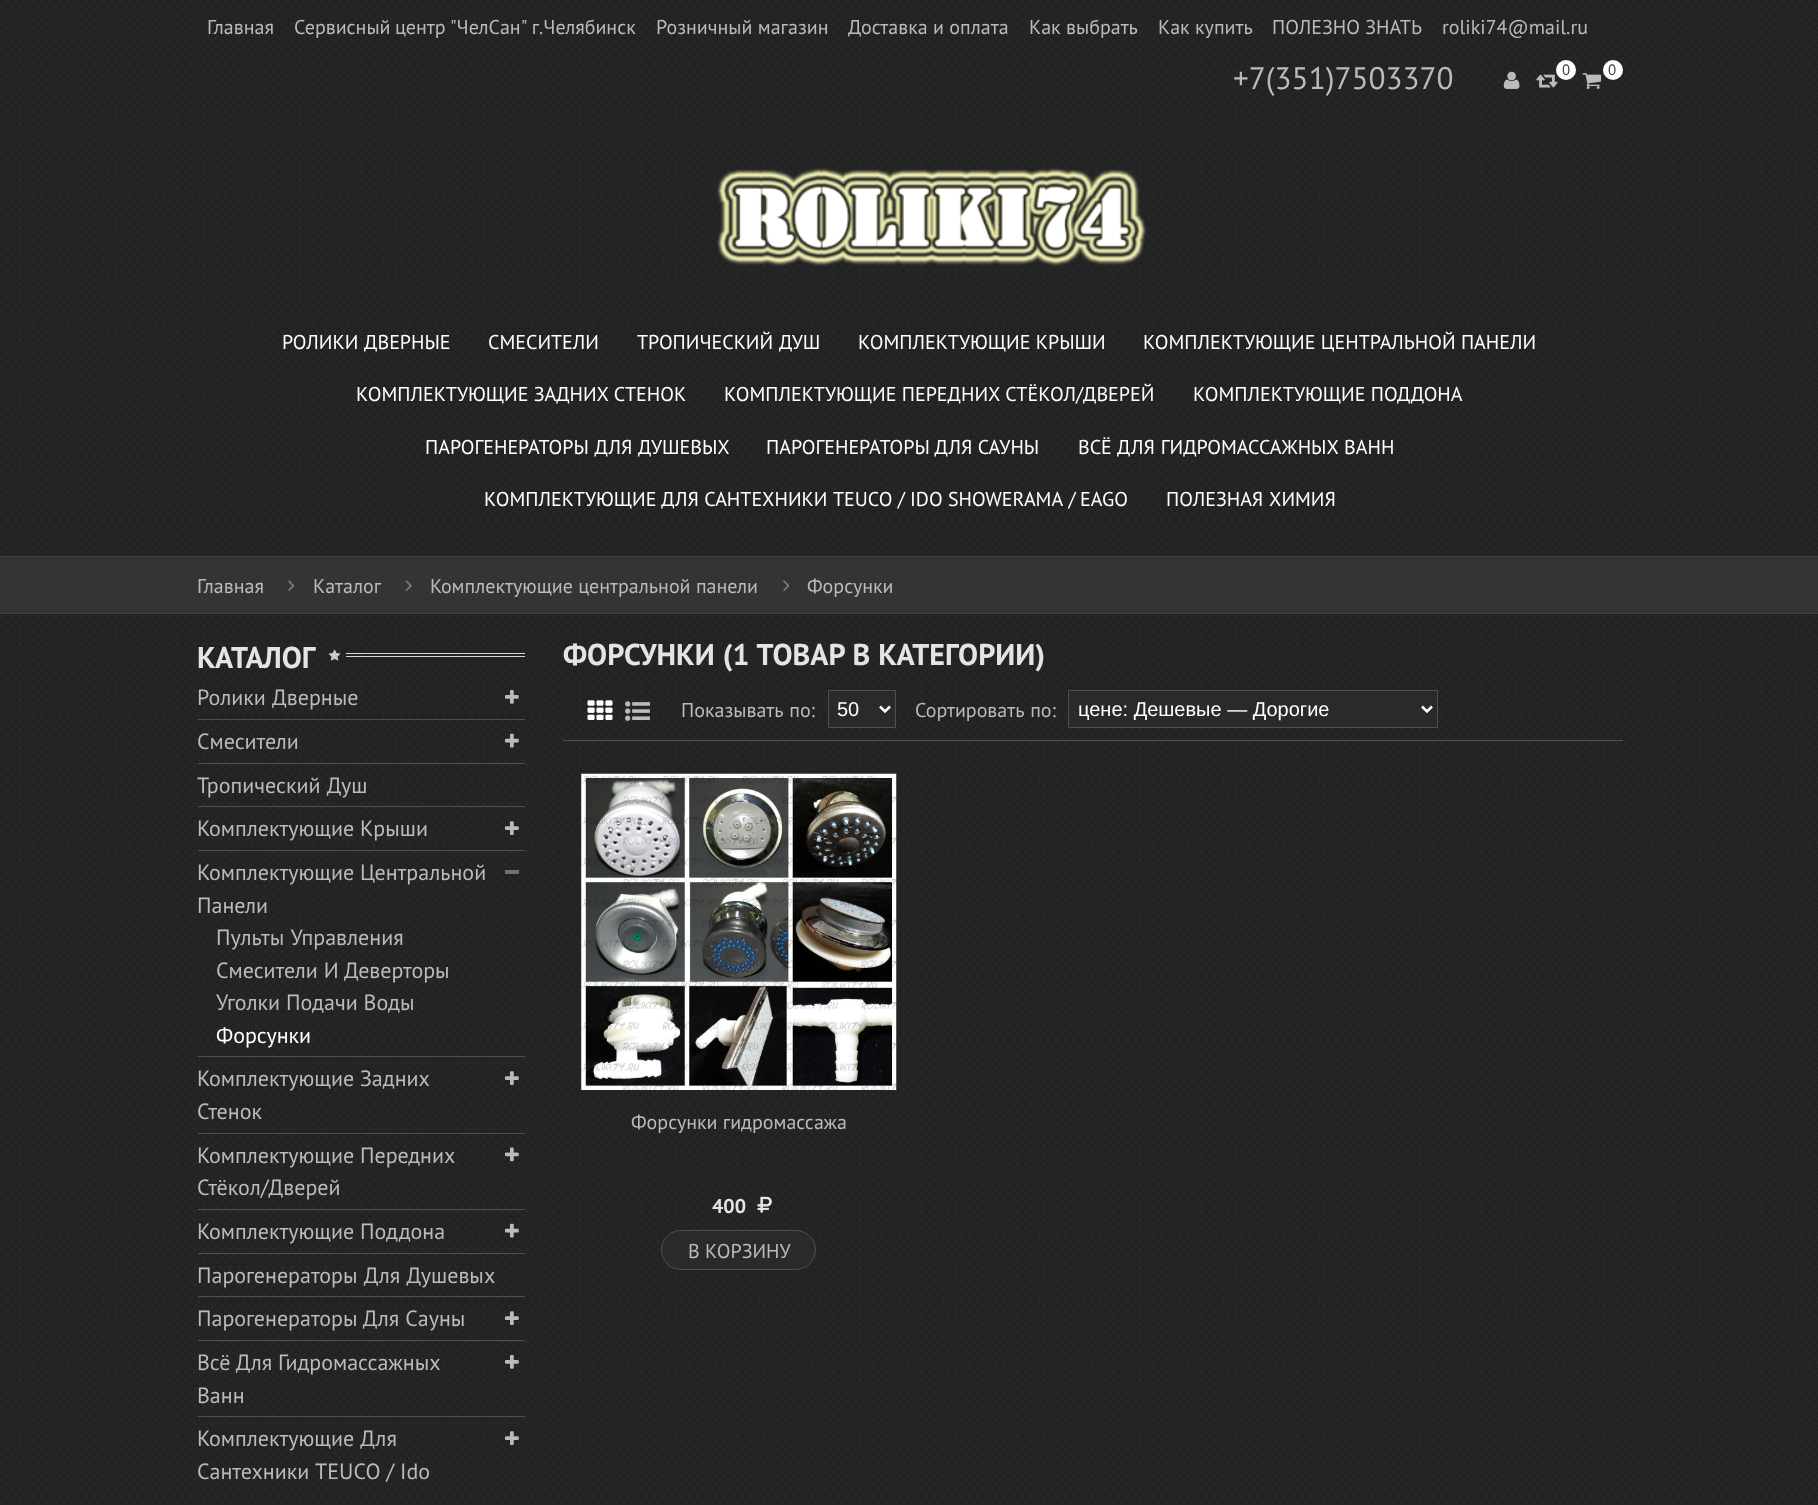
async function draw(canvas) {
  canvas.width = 1818
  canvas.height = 1505
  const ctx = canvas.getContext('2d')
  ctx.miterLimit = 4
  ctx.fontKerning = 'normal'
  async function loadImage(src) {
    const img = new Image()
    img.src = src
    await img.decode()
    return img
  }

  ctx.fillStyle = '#fff'
  ctx.fillRect(0, 0, 1818, 1505)
  ctx.drawImage(await loadImage('image0.png'), 0, 0, 1818, 1505)
  ctx.font = '20px PT Sans'
  ctx.fillStyle = '#bbb'
  ctx.fillText('Главная', 207, 34)
  ctx.wordSpacing = '-1px'
  ctx.fillText('Сервисный центр "ЧелСан" г.Челябинск', 294, 34)
  ctx.wordSpacing = '0px'
  ctx.fillText('Розничный магазин', 656, 34)
  ctx.fillText('Доставка и оплата', 848, 34)
  ctx.fillText('Как выбрать', 1029, 34)
  ctx.fillText('Как купить', 1158, 34)
  ctx.fillText('ПОЛЕЗНО ЗНАТЬ', 1272, 34)
  ctx.fillText('roliki74@mail.ru', 1442, 34)
  ctx.font = '31.25px PT Sans'
  ctx.fillText('+7(351)7503370', 1233, 89)
  ctx.drawImage(await loadImage('image1.png'), 1503, 71, 17, 18)
  ctx.drawImage(await loadImage('image2.png'), 1536, 74, 22, 14)
  ctx.fillStyle = '#fff'
  ctx.beginPath()
  ctx.arc(1566, 70, 10, 0, 2 * Math.PI)
  ctx.fill()
  ctx.font = '15px PT Sans'
  ctx.fillStyle = '#3c3c3c'
  ctx.fillText('0', 1562, 75)
  ctx.fillStyle = '#fff'
  ctx.beginPath()
  ctx.arc(1613, 70, 10, 0, 2 * Math.PI)
  ctx.fill()
  ctx.fillStyle = '#3c3c3c'
  ctx.fillText('0', 1608, 75)
  ctx.drawImage(await loadImage('image3.png'), 1582, 73, 20, 16)
  ctx.drawImage(await loadImage('image4.png'), 717, 168, 430, 98)
  ctx.wordSpacing = '1px'
  ctx.font = '20px PT Sans'
  ctx.fillStyle = '#fff'
  ctx.fillText('РОЛИКИ ДВЕРНЫЕ', 282, 349)
  ctx.wordSpacing = '0px'
  ctx.fillText('СМЕСИТЕЛИ', 488, 349)
  ctx.wordSpacing = '1px'
  ctx.fillText('ТРОПИЧЕСКИЙ ДУШ', 637, 349)
  ctx.wordSpacing = '0px'
  ctx.fillText('КОМПЛЕКТУЮЩИЕ КРЫШИ', 858, 349)
  ctx.fillText('КОМПЛЕКТУЮЩИЕ ЦЕНТРАЛЬНОЙ ПАНЕЛИ', 1143, 349)
  ctx.fillText('КОМПЛЕКТУЮЩИЕ ЗАДНИХ СТЕНОК', 356, 401)
  ctx.fillText('КОМПЛЕКТУЮЩИЕ ПЕРЕДНИХ СТЁКОЛ/ДВЕРЕЙ', 724, 401)
  ctx.fillText('КОМПЛЕКТУЮЩИЕ ПОДДОНА', 1193, 401)
  ctx.wordSpacing = '1px'
  ctx.fillText('ПАРОГЕНЕРАТОРЫ ДЛЯ ДУШЕВЫХ', 425, 454)
  ctx.wordSpacing = '0px'
  ctx.fillText('ПАРОГЕНЕРАТОРЫ ДЛЯ САУНЫ', 766, 454)
  ctx.wordSpacing = '0.5px'
  ctx.fillText('ВСЁ ДЛЯ ГИДРОМАССАЖНЫХ ВАНН', 1078, 454)
  ctx.wordSpacing = '0px'
  ctx.fillText('КОМПЛЕКТУЮЩИЕ ДЛЯ САНТЕХНИКИ', 484, 506)
  ctx.fillText('TEUCO /', 833, 506)
  ctx.fillText('IDO SHOWERAMA /', 910, 506)
  ctx.fillText('EAGO', 1080, 506)
  ctx.wordSpacing = '1px'
  ctx.fillText('ПОЛЕЗНАЯ ХИМИЯ', 1166, 506)
  ctx.fillStyle = '#343434'
  ctx.fillRect(0, 557, 1818, 56)
  ctx.fillStyle = '#3f3f3f'
  ctx.fillRect(0, 556, 1818, 1)
  ctx.fillRect(0, 613, 1818, 1)
  ctx.wordSpacing = '0px'
  ctx.fillStyle = '#bbb'
  ctx.fillText('Главная', 197, 593)
  ctx.drawImage(await loadImage('image5.png'), 287, 580, 7, 12)
  ctx.fillText('Каталог', 313, 593)
  ctx.drawImage(await loadImage('image6.png'), 405, 580, 7, 12)
  ctx.fillText('Комплектующие центральной панели', 430, 593)
  ctx.drawImage(await loadImage('image7.png'), 782, 580, 7, 12)
  ctx.fillText('Форсунки', 807, 593)
  ctx.font = 'bold 30px PT Sans'
  ctx.fillStyle = '#e4e4e4'
  ctx.fillText('КАТАЛОГ', 197, 668)
  ctx.drawImage(await loadImage('image8.png'), 328, 649, 13, 12)
  ctx.fillStyle = '#d7d7d7'
  ctx.fillRect(346, 653, 179, 1)
  ctx.fillRect(346, 656, 179, 1)
  ctx.fillStyle = '#505050'
  ctx.fillRect(198, 719, 327, 1)
  ctx.wordSpacing = '1px'
  ctx.font = '22px PT Sans'
  ctx.fillStyle = '#bbb'
  ctx.fillText('Ролики Дверные', 197, 705)
  ctx.drawImage(await loadImage('image9.png'), 505, 690, 14, 14)
  ctx.fillStyle = '#505050'
  ctx.fillRect(198, 763, 327, 1)
  ctx.wordSpacing = '0px'
  ctx.fillStyle = '#bbb'
  ctx.fillText('Смесители', 197, 749)
  ctx.drawImage(await loadImage('image10.png'), 505, 733, 14, 15)
  ctx.fillStyle = '#505050'
  ctx.fillRect(198, 806, 327, 1)
  ctx.wordSpacing = '1px'
  ctx.fillStyle = '#bbb'
  ctx.fillText('Тропический Душ', 197, 793)
  ctx.fillStyle = '#505050'
  ctx.fillRect(198, 850, 327, 1)
  ctx.wordSpacing = '0px'
  ctx.fillStyle = '#bbb'
  ctx.fillText('Комплектующие Крыши', 197, 836)
  ctx.drawImage(await loadImage('image11.png'), 505, 821, 14, 14)
  ctx.fillStyle = '#505050'
  ctx.fillRect(198, 1056, 327, 1)
  ctx.fillStyle = '#bbb'
  ctx.fillText('Комплектующие Центральной', 197, 880)
  ctx.fillStyle = '#707070'
  ctx.fillRect(505, 870, 14, 4)
  ctx.fillStyle = '#bbb'
  ctx.fillText('Панели', 197, 913)
  ctx.wordSpacing = '1px'
  ctx.fillText('Пульты Управления', 216, 945)
  ctx.wordSpacing = '0px'
  ctx.fillText('Смесители И Деверторы', 216, 978)
  ctx.fillText('Уголки Подачи Воды', 216, 1010)
  ctx.fillStyle = '#fff'
  ctx.fillText('Форсунки', 216, 1043)
  ctx.fillStyle = '#505050'
  ctx.fillRect(198, 1133, 327, 1)
  ctx.fillStyle = '#bbb'
  ctx.fillText('Комплектующие Задних', 197, 1086)
  ctx.drawImage(await loadImage('image12.png'), 505, 1071, 14, 14)
  ctx.fillText('Стенок', 197, 1119)
  ctx.fillStyle = '#505050'
  ctx.fillRect(198, 1209, 327, 1)
  ctx.fillStyle = '#bbb'
  ctx.fillText('Комплектующие Передних', 197, 1163)
  ctx.drawImage(await loadImage('image13.png'), 505, 1147, 14, 15)
  ctx.fillText('Стёкол/Дверей', 197, 1195)
  ctx.fillStyle = '#505050'
  ctx.fillRect(198, 1253, 327, 1)
  ctx.fillStyle = '#bbb'
  ctx.fillText('Комплектующие Поддона', 197, 1239)
  ctx.drawImage(await loadImage('image14.png'), 505, 1223, 14, 15)
  ctx.fillStyle = '#505050'
  ctx.fillRect(198, 1296, 327, 1)
  ctx.wordSpacing = '1px'
  ctx.fillStyle = '#bbb'
  ctx.fillText('Парогенераторы Для Душевых', 197, 1283)
  ctx.fillStyle = '#505050'
  ctx.fillRect(198, 1340, 327, 1)
  ctx.wordSpacing = '0px'
  ctx.fillStyle = '#bbb'
  ctx.fillText('Парогенераторы Для Сауны', 197, 1326)
  ctx.drawImage(await loadImage('image15.png'), 505, 1311, 14, 14)
  ctx.fillStyle = '#505050'
  ctx.fillRect(198, 1416, 327, 1)
  ctx.fillStyle = '#bbb'
  ctx.fillText('Всё Для Гидромассажных', 197, 1370)
  ctx.drawImage(await loadImage('image16.png'), 505, 1355, 14, 14)
  ctx.fillText('Ванн', 197, 1403)
  ctx.wordSpacing = '1px'
  ctx.fillText('Комплектующие Для', 197, 1446)
  ctx.drawImage(await loadImage('image17.png'), 505, 1431, 14, 14)
  ctx.wordSpacing = '0px'
  ctx.fillText('Сантехники TEUCO / Ido', 197, 1479)
  ctx.wordSpacing = '0.5px'
  ctx.font = 'bold 30px PT Sans'
  ctx.fillStyle = '#e4e4e4'
  ctx.fillText('ФОРСУНКИ (1 ТОВАР В КАТЕГОРИИ)', 563, 665)
  ctx.fillStyle = '#505050'
  ctx.fillRect(563, 740, 1060, 1)
  ctx.drawImage(await loadImage('image18.png'), 587, 700, 26, 20)
  ctx.drawImage(await loadImage('image19.png'), 625, 701, 25, 20)
  ctx.wordSpacing = '1px'
  ctx.font = '20px PT Sans'
  ctx.fillStyle = '#bbb'
  ctx.fillText('Показывать по:', 681, 717)
  ctx.fillStyle = '#2a2a2a'
  ctx.beginPath()
  ctx.rect(828.5, 690.5, 67, 37)
  ctx.fill()
  ctx.strokeStyle = '#505050'
  ctx.stroke()
  ctx.beginPath()
  ctx.moveTo(880, 706.5)
  ctx.lineTo(885, 711.5)
  ctx.lineTo(890, 706.5)
  ctx.strokeStyle = '#fff'
  ctx.lineWidth = 2.5
  ctx.stroke()
  ctx.wordSpacing = '0px'
  ctx.font = '20px Liberation Sans'
  ctx.fillStyle = '#fff'
  ctx.fillText('50', 837, 716)
  ctx.wordSpacing = '1px'
  ctx.font = '20px PT Sans'
  ctx.fillStyle = '#bbb'
  ctx.fillText('Сортировать по:', 915, 717)
  ctx.fillStyle = '#2a2a2a'
  ctx.beginPath()
  ctx.rect(1068.5, 690.5, 369, 37)
  ctx.fill()
  ctx.strokeStyle = '#505050'
  ctx.lineWidth = 1
  ctx.stroke()
  ctx.beginPath()
  ctx.moveTo(1422, 706.5)
  ctx.lineTo(1427, 711.5)
  ctx.lineTo(1432, 706.5)
  ctx.strokeStyle = '#fff'
  ctx.lineWidth = 2.5
  ctx.stroke()
  ctx.wordSpacing = '0px'
  ctx.font = '20px Liberation Sans'
  ctx.fillStyle = '#fff'
  ctx.fillText('цене: Дешевые — Дорогие', 1078, 716)
  ctx.drawImage(await loadImage('image20.png'), 581, 773, 316, 317)
  ctx.font = '20px PT Sans'
  ctx.fillStyle = '#bbb'
  ctx.fillText('Форсунки гидромассажа', 631, 1129)
  ctx.font = 'bold 20px PT Sans'
  ctx.fillStyle = '#e4e4e4'
  ctx.fillText('400', 712, 1213)
  ctx.drawImage(await loadImage('image21.png'), 757, 1196, 15, 17)
  ctx.fillStyle = '#2a2a2a'
  ctx.beginPath()
  ctx.roundRect(661.5, 1230.5, 154, 39, 19.5)
  ctx.fill()
  ctx.strokeStyle = '#505050'
  ctx.lineWidth = 1
  ctx.stroke()
  ctx.font = '20px PT Sans'
  ctx.fillStyle = '#bbb'
  ctx.fillText('В КОРЗИНУ', 688, 1258)
}

draw(document.querySelector('canvas'))
